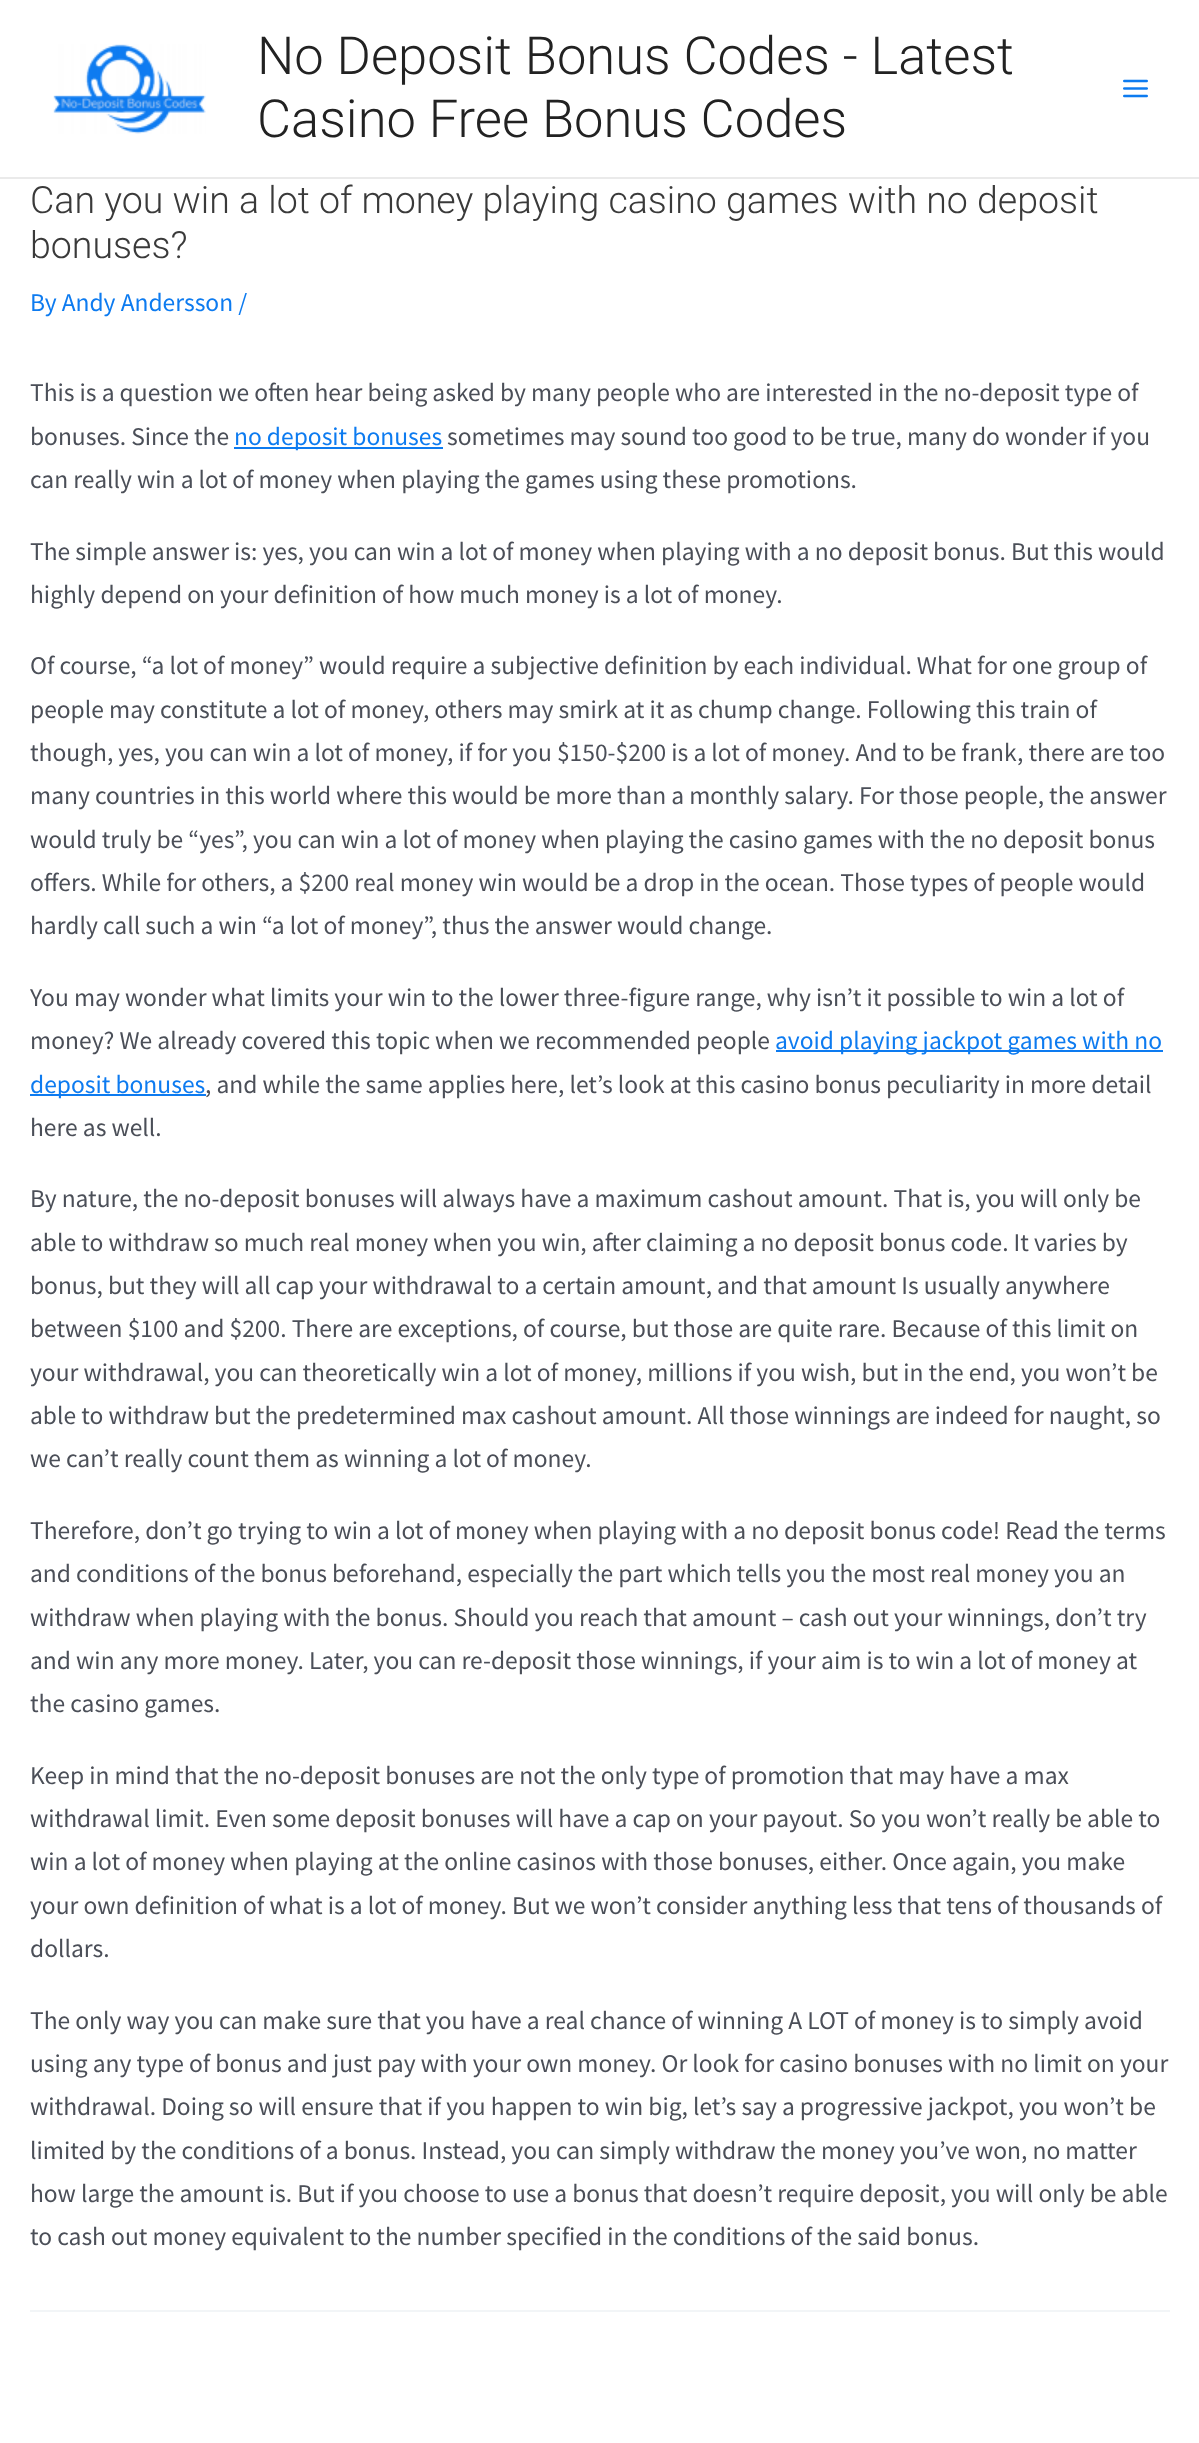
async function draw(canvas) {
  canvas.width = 1199
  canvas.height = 2443
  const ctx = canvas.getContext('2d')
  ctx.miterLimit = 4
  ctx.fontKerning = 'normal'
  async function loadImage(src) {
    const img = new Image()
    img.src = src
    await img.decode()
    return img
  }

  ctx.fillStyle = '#fff'
  ctx.fillRect(0, 0, 1199, 2443)
  ctx.fillStyle = '#eaeaea'
  ctx.fillRect(0, 177, 1199, 2)
  ctx.drawImage(await loadImage('image0.png'), 53, 44, 153, 90)
  ctx.font = '300 52.5px Roboto'
  ctx.fillStyle = '#222'
  ctx.fillText('No Deposit Bonus Codes - Latest', 257, 74)
  ctx.fillText('Casino Free Bonus Codes', 257, 137)
  ctx.drawImage(await loadImage('image1.png'), 1123, 79, 25, 19)
  ctx.font = '300 37.5px Roboto'
  ctx.fillStyle = '#3a3a3a'
  ctx.fillText('Can you win a lot of money playing casino games with no deposit', 30, 213)
  ctx.fillText('bonuses?', 30, 258)
  ctx.font = '25.5px Source Sans Pro'
  ctx.fillStyle = '#0d7bf0'
  ctx.fillText('By Andy Andersson /', 30, 311)
  ctx.fillStyle = '#4b4f58'
  ctx.fillText('This is a question we often hear being asked by many people who are interested in the no-deposit type of', 30, 401)
  ctx.fillText('bonuses. Since the', 30, 445)
  ctx.fillStyle = '#0d7bf0'
  ctx.fillRect(234, 447, 209, 2)
  ctx.fillText('no deposit bonuses', 234, 445)
  ctx.fillStyle = '#4b4f58'
  ctx.fillText('sometimes may sound too good to be true, many do wonder if you', 447, 445)
  ctx.fillText('can really win a lot of money when playing the games using these promotions.', 30, 488)
  ctx.fillText('The simple answer is: yes, you can win a lot of money when playing with a no deposit bonus. But this would', 30, 560)
  ctx.fillText('highly depend on your definition of how much money is a lot of money.', 30, 603)
  ctx.fillText('Of course, “a lot of money” would require a subjective definition by each individual. What for one group of', 30, 674)
  ctx.fillText('people may constitute a lot of money, others may smirk at it as chump change. Following this train of', 30, 718)
  ctx.fillText('though, yes, you can win a lot of money, if for you $150-$200 is a lot of money. And to be frank, there are too', 30, 761)
  ctx.fillText('many countries in this world where this would be more than a monthly salary. For those people, the answer', 30, 804)
  ctx.fillText('would truly be “yes”, you can win a lot of money when playing the casino games with the no deposit bonus', 30, 848)
  ctx.fillText('offers. While for others, a $200 real money win would be a drop in the ocean. Those types of people would', 30, 891)
  ctx.fillText('hardly call such a win “a lot of money”, thus the answer would change.', 30, 934)
  ctx.fillText('You may wonder what limits your win to the lower three-figure range, why isn’t it possible to win a lot of', 30, 1006)
  ctx.fillText('money? We already covered this topic when we recommended people', 30, 1049)
  ctx.fillStyle = '#0d7bf0'
  ctx.fillRect(776, 1050, 387, 2)
  ctx.fillText('avoid playing jackpot games with no', 775, 1049)
  ctx.fillRect(30, 1094, 176, 2)
  ctx.fillText('deposit bonuses', 30, 1093)
  ctx.fillStyle = '#4b4f58'
  ctx.fillText(', and while the same applies here, let’s look at this casino bonus peculiarity in more detail', 205, 1093)
  ctx.fillText('here as well.', 30, 1136)
  ctx.fillText('By nature, the no-deposit bonuses will always have a maximum cashout amount. That is, you will only be', 30, 1207)
  ctx.fillText('able to withdraw so much real money when you win, after claiming a no deposit bonus code. It varies by', 30, 1251)
  ctx.fillText('bonus, but they will all cap your withdrawal to a certain amount, and that amount Is usually anywhere', 30, 1294)
  ctx.fillText('between $100 and $200. There are exceptions, of course, but those are quite rare. Because of this limit on', 30, 1337)
  ctx.fillText('your withdrawal, you can theoretically win a lot of money, millions if you wish, but in the end, you won’t be', 30, 1381)
  ctx.fillText('able to withdraw but the predetermined max cashout amount. All those winnings are indeed for naught, so', 30, 1424)
  ctx.fillText('we can’t really count them as winning a lot of money.', 30, 1467)
  ctx.fillText('Therefore, don’t go trying to win a lot of money when playing with a no deposit bonus code! Read the terms', 30, 1539)
  ctx.fillText('and conditions of the bonus beforehand, especially the part which tells you the most real money you an', 30, 1582)
  ctx.fillText('withdraw when playing with the bonus. Should you reach that amount – cash out your winnings, don’t try', 30, 1626)
  ctx.fillText('and win any more money. Later, you can re-deposit those winnings, if your aim is to win a lot of money at', 30, 1669)
  ctx.fillText('the casino games.', 30, 1712)
  ctx.fillText('Keep in mind that the no-deposit bonuses are not the only type of promotion that may have a max', 30, 1784)
  ctx.fillText('withdrawal limit. Even some deposit bonuses will have a cap on your payout. So you won’t really be able to', 30, 1827)
  ctx.fillText('win a lot of money when playing at the online casinos with those bonuses, either. Once again, you make', 30, 1870)
  ctx.fillText('your own definition of what is a lot of money. But we won’t consider anything less that tens of thousands of', 30, 1914)
  ctx.fillText('dollars.', 30, 1957)
  ctx.fillText('The only way you can make sure that you have a real chance of winning A LOT of money is to simply avoid', 30, 2029)
  ctx.fillText('using any type of bonus and just pay with your own money. Or look for casino bonuses with no limit on your', 30, 2072)
  ctx.fillText('withdrawal. Doing so will ensure that if you happen to win big, let’s say a progressive jackpot, you won’t be', 30, 2115)
  ctx.fillText('limited by the conditions of a bonus. Instead, you can simply withdraw the money you’ve won, no matter', 30, 2159)
  ctx.fillText('how large the amount is. But if you choose to use a bonus that doesn’t require deposit, you will only be able', 30, 2202)
  ctx.fillText('to cash out money equivalent to the number specified in the conditions of the said bonus.', 30, 2245)
  ctx.fillStyle = '#f2f5f7'
  ctx.fillRect(30, 2310, 1140, 2)
}

draw(document.querySelector('canvas'))
